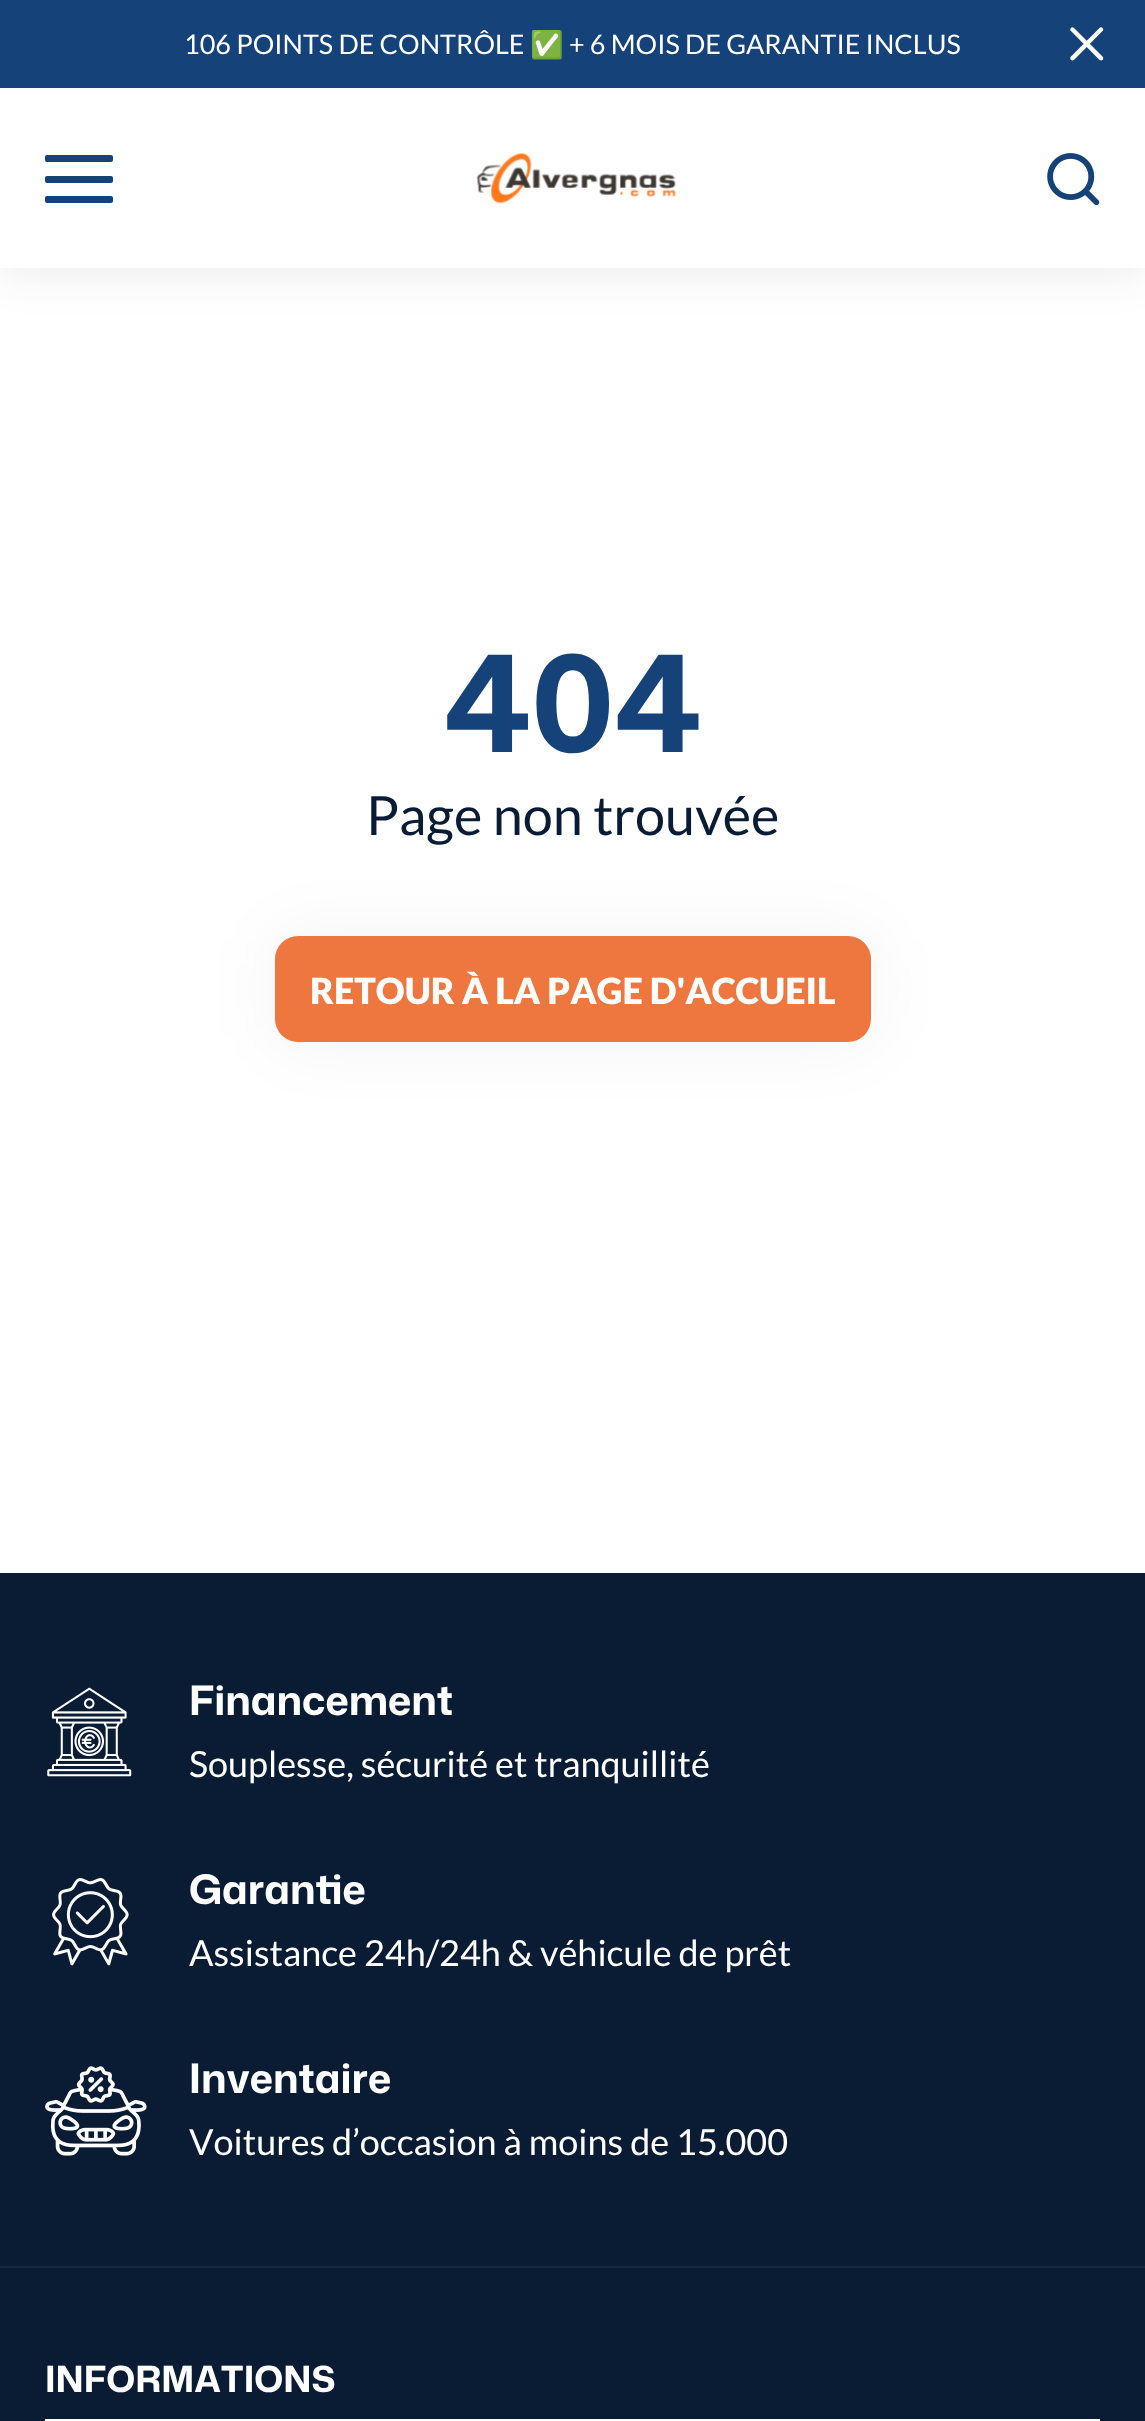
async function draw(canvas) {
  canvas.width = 1145
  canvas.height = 2421
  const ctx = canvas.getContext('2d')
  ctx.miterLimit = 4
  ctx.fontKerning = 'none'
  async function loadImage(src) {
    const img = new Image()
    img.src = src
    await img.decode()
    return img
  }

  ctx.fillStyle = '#fff'
  ctx.fillRect(0, 0, 1145, 2421)
  ctx.fillStyle = '#24272c14'
  ctx.filter = 'blur(20px)'
  ctx.beginPath()
  ctx.rect(0, 97, 1145, 180)
  ctx.fill()
  ctx.filter = 'none'
  ctx.fillStyle = '#154279'
  ctx.fillRect(0, 0, 1145, 88)
  ctx.font = '27px Lato'
  ctx.fillStyle = '#fff'
  ctx.fillText('106 POINTS DE CONTRÔLE', 184, 54)
  ctx.font = '27px Noto Color Emoji'
  ctx.fillText('✅', 530, 54)
  ctx.font = '27px Lato'
  ctx.fillText('+ 6 MOIS DE GARANTIE INCLUS', 569, 54)
  ctx.beginPath()
  ctx.moveTo(1102.5, 28)
  ctx.bezierCurveTo(1103.5, 29, 1103.5, 30.5, 1102.5, 31)
  ctx.lineTo(1074, 60)
  ctx.bezierCurveTo(1073, 60.5, 1071.5, 60.5, 1071, 60)
  ctx.bezierCurveTo(1070, 59, 1070, 57.5, 1071, 56.5)
  ctx.lineTo(1099.5, 28)
  ctx.bezierCurveTo(1100.5, 27, 1102, 27, 1102.5, 28)
  ctx.closePath()
  ctx.fill()
  ctx.beginPath()
  ctx.moveTo(1071, 28)
  ctx.bezierCurveTo(1071.5, 27, 1073, 27, 1074, 28)
  ctx.lineTo(1102.5, 56.5)
  ctx.bezierCurveTo(1103.5, 57.5, 1103.5, 59, 1102.5, 60)
  ctx.bezierCurveTo(1102, 60.5, 1100.5, 60.5, 1099.5, 60)
  ctx.lineTo(1071, 31)
  ctx.bezierCurveTo(1070, 30.5, 1070, 29, 1071, 28)
  ctx.closePath()
  ctx.fill()
  ctx.fillRect(0, 88, 1145, 180)
  ctx.fillStyle = '#154279'
  ctx.beginPath()
  ctx.roundRect(45, 155, 68, 7, 2)
  ctx.fill()
  ctx.beginPath()
  ctx.roundRect(45, 176, 68, 7, 2)
  ctx.fill()
  ctx.beginPath()
  ctx.roundRect(45, 196, 68, 7, 2)
  ctx.fill()
  ctx.drawImage(await loadImage('image0.png'), 476, 152, 201, 52)
  ctx.drawImage(await loadImage('image1.png'), 1047, 153, 53, 53)
  ctx.font = 'bold 135px Mona Sans'
  ctx.fillText('404', 444, 752)
  ctx.font = '54px Lato'
  ctx.fillStyle = '#091c34'
  ctx.fillText('Page non trouvée', 366, 835)
  ctx.fillStyle = '#0000000d'
  ctx.filter = 'blur(34px)'
  ctx.beginPath()
  ctx.roundRect(275, 936, 596, 106, 23)
  ctx.fill()
  ctx.filter = 'none'
  ctx.fillStyle = '#ee773f'
  ctx.beginPath()
  ctx.roundRect(275, 936, 596, 106, 23)
  ctx.fill()
  ctx.font = '900 36px Lato'
  ctx.fillStyle = '#fff'
  ctx.fillText('RETOUR À LA PAGE D\'ACCUEIL', 310, 1004)
  ctx.fillStyle = '#091c34'
  ctx.fillRect(0, 1573, 1145, 848)
  ctx.fillStyle = '#15273e'
  ctx.fillRect(0, 2266, 1145, 2)
  ctx.drawImage(await loadImage('image2.png'), 47, 1687, 85, 90)
  ctx.font = 'bold 40.5px Mona Sans'
  ctx.fillStyle = '#fff'
  ctx.fillText('Financement', 189, 1715)
  ctx.font = '36px Lato'
  ctx.fillText('Souplesse, sécurité et tranquillité', 189, 1777)
  ctx.drawImage(await loadImage('image3.png'), 52, 1878, 77, 88)
  ctx.font = 'bold 40.5px Mona Sans'
  ctx.fillText('Garantie', 189, 1904)
  ctx.font = '36px Lato'
  ctx.fillText('Assistance 24h/24h & véhicule de prêt', 189, 1966)
  ctx.drawImage(await loadImage('image4.png'), 45, 2066, 102, 90)
  ctx.font = 'bold 40.5px Mona Sans'
  ctx.fillText('Inventaire', 189, 2093)
  ctx.font = '36px Lato'
  ctx.fillText('Voitures d’occasion à moins de 15.000', 189, 2155)
  ctx.fillRect(45, 2419, 1055, 2)
  ctx.font = 'bold 36px Mona Sans'
  ctx.fillText('INFORMATIONS', 45, 2392)
}

draw(document.querySelector('canvas'))
